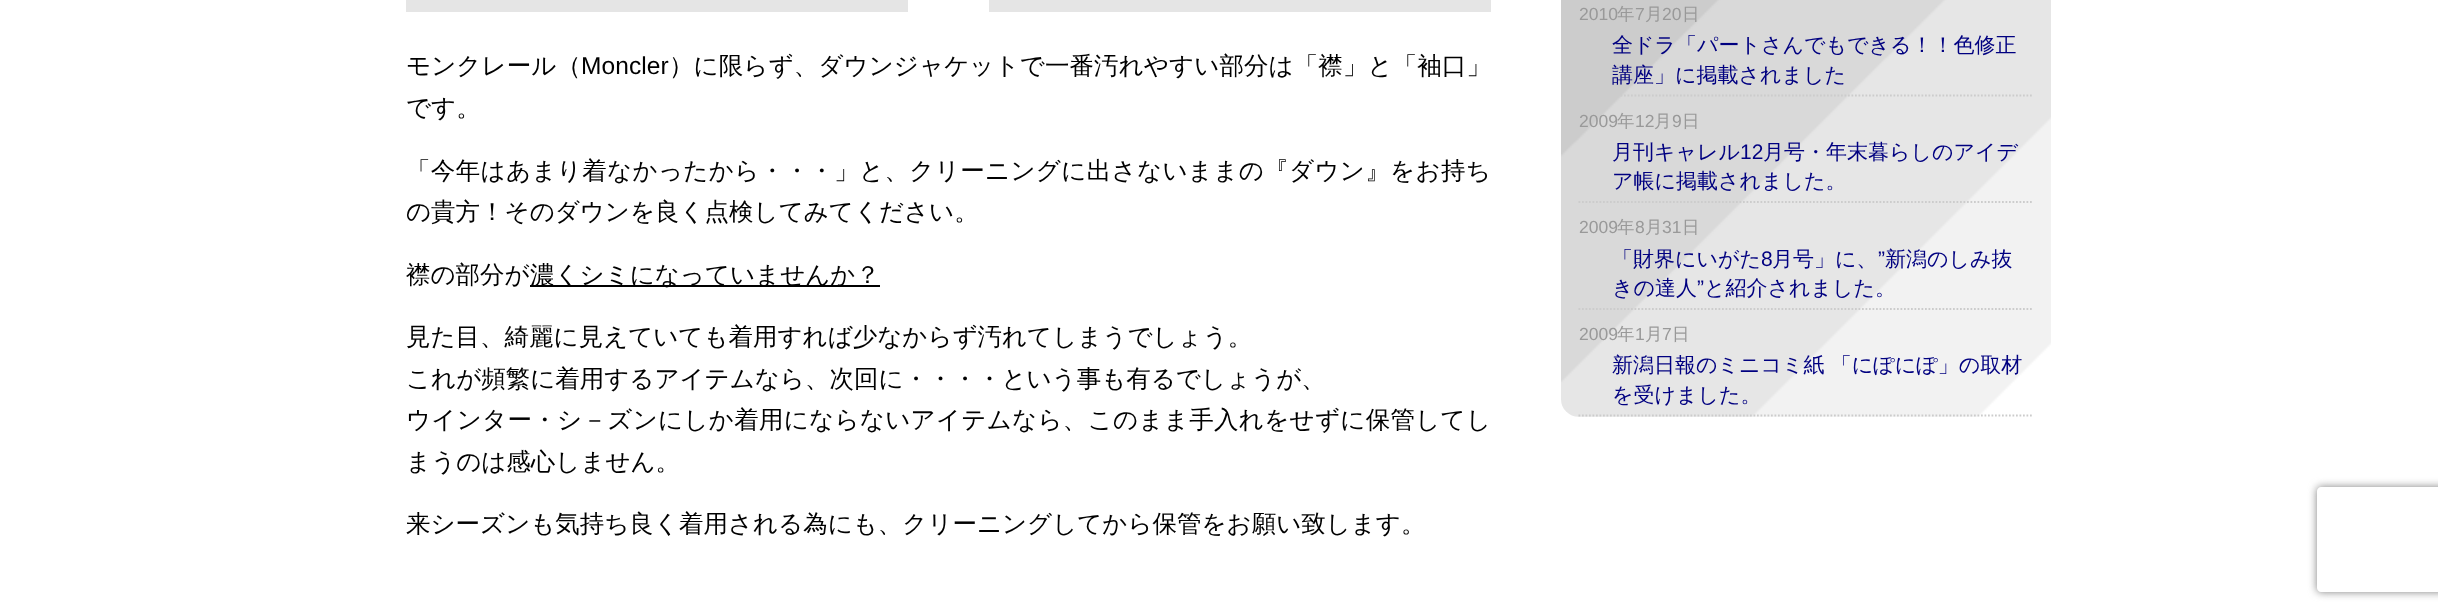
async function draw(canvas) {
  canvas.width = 2438
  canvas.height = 616
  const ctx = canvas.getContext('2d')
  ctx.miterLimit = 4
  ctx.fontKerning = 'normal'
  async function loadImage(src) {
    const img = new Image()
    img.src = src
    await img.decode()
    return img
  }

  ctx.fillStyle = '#fff'
  ctx.fillRect(0, 0, 2438, 616)
  ctx.fillStyle = '#e5e5e5'
  ctx.fillRect(406, 0, 502, 12)
  ctx.fillRect(989, 0, 502, 12)
  ctx.letterSpacing = '0.1px'
  ctx.font = '500 24.5px WenQuanYi Zen Hei'
  ctx.fillStyle = '#000'
  ctx.fillText('モンクレール（', 406, 74)
  ctx.font = '24.5px Liberation Sans'
  ctx.fillText('Moncler', 581, 74)
  ctx.font = '500 24.5px WenQuanYi Zen Hei'
  ctx.fillText('）に限らず、ダウンジャケットで一番汚れやすい部分は「襟」と「袖口」', 669, 74)
  ctx.letterSpacing = '0px'
  ctx.fillText('です。', 406, 116)
  ctx.letterSpacing = '0.35px'
  ctx.fillText('「今年はあまり着なかったから・・・」と、クリーニングに出さないままの『ダウン』をお持ち', 406, 179)
  ctx.letterSpacing = '0px'
  ctx.fillText('の貴方！そのダウンを良く点検してみてください。', 406, 220)
  ctx.fillText('襟の部分が', 406, 283)
  ctx.fillRect(530, 285, 350, 2)
  ctx.fillText('濃くシミになっていませんか？', 530, 283)
  ctx.fillText('見た目、綺麗に見えていても着用すれば少なからず汚れてしまうでしょう。', 406, 345)
  ctx.fillText('これが頻繁に着用するアイテムなら、次回に・・・・という事も有るでしょうが、', 406, 387)
  ctx.letterSpacing = '0.3px'
  ctx.fillText('ウインター・シ－ズンにしか着用にならないアイテムなら、このまま手入れをせずに保管してし', 406, 428)
  ctx.letterSpacing = '0px'
  ctx.fillText('まうのは感心しません。', 406, 470)
  ctx.fillText('来シーズンも気持ち良く着用される為にも、クリーニングしてから保管をお願い致します。', 406, 532)
  ctx.drawImage(await loadImage('image0.png'), 1561, 0, 490, 417)
  ctx.font = '17.5px Liberation Sans'
  ctx.fillStyle = '#999'
  ctx.fillText('2010', 1579, 20)
  ctx.font = '500 17.5px WenQuanYi Zen Hei'
  ctx.fillText('年', 1617, 20)
  ctx.font = '17.5px Liberation Sans'
  ctx.fillText('7', 1635, 20)
  ctx.font = '500 17.5px WenQuanYi Zen Hei'
  ctx.fillText('月', 1645, 20)
  ctx.font = '17.5px Liberation Sans'
  ctx.fillText('20', 1662, 20)
  ctx.font = '500 17.5px WenQuanYi Zen Hei'
  ctx.fillText('日', 1682, 20)
  ctx.beginPath()
  ctx.moveTo(1578.5, 95.5)
  ctx.lineTo(2033.5, 95.5)
  ctx.strokeStyle = '#ccc'
  ctx.lineWidth = 1.8
  ctx.setLineDash([1.75, 1.75])
  ctx.stroke()
  ctx.font = '500 21px WenQuanYi Zen Hei'
  ctx.fillStyle = '#000080'
  ctx.fillText('全ドラ「パートさんでもできる！！色修正', 1612, 52)
  ctx.fillText('講座」に掲載されました', 1612, 82)
  ctx.font = '17.5px Liberation Sans'
  ctx.fillStyle = '#999'
  ctx.fillText('2009', 1579, 127)
  ctx.font = '500 17.5px WenQuanYi Zen Hei'
  ctx.fillText('年', 1617, 127)
  ctx.font = '17.5px Liberation Sans'
  ctx.fillText('12', 1635, 127)
  ctx.font = '500 17.5px WenQuanYi Zen Hei'
  ctx.fillText('月', 1654, 127)
  ctx.font = '17.5px Liberation Sans'
  ctx.fillText('9', 1672, 127)
  ctx.font = '500 17.5px WenQuanYi Zen Hei'
  ctx.fillText('日', 1682, 127)
  ctx.beginPath()
  ctx.moveTo(1578.5, 202)
  ctx.lineTo(2033.5, 202)
  ctx.stroke()
  ctx.font = '500 21px WenQuanYi Zen Hei'
  ctx.fillStyle = '#000080'
  ctx.fillText('月刊キャレル', 1612, 159)
  ctx.font = '21px Liberation Sans'
  ctx.fillText('12', 1740, 159)
  ctx.font = '500 21px WenQuanYi Zen Hei'
  ctx.fillText('月号・年末暮らしのアイデ', 1763, 159)
  ctx.fillText('ア帳に掲載されました。', 1612, 188)
  ctx.font = '17.5px Liberation Sans'
  ctx.fillStyle = '#999'
  ctx.fillText('2009', 1579, 233)
  ctx.font = '500 17.5px WenQuanYi Zen Hei'
  ctx.fillText('年', 1617, 233)
  ctx.font = '17.5px Liberation Sans'
  ctx.fillText('8', 1635, 233)
  ctx.font = '500 17.5px WenQuanYi Zen Hei'
  ctx.fillText('月', 1645, 233)
  ctx.font = '17.5px Liberation Sans'
  ctx.fillText('31', 1662, 233)
  ctx.font = '500 17.5px WenQuanYi Zen Hei'
  ctx.fillText('日', 1682, 233)
  ctx.beginPath()
  ctx.moveTo(1578.5, 309)
  ctx.lineTo(2033.5, 309)
  ctx.stroke()
  ctx.font = '500 21px WenQuanYi Zen Hei'
  ctx.fillStyle = '#000080'
  ctx.fillText('「財界にいがた', 1612, 266)
  ctx.font = '21px Liberation Sans'
  ctx.fillText('8', 1761, 266)
  ctx.font = '500 21px WenQuanYi Zen Hei'
  ctx.fillText('月号」に、', 1772, 266)
  ctx.font = '21px Liberation Sans'
  ctx.fillText('”', 1878, 266)
  ctx.font = '500 21px WenQuanYi Zen Hei'
  ctx.fillText('新潟のしみ抜', 1885, 266)
  ctx.fillText('きの達人', 1612, 295)
  ctx.font = '21px Liberation Sans'
  ctx.fillText('”', 1697, 295)
  ctx.font = '500 21px WenQuanYi Zen Hei'
  ctx.fillText('と紹介されました。', 1704, 295)
  ctx.font = '17.5px Liberation Sans'
  ctx.fillStyle = '#999'
  ctx.fillText('2009', 1579, 340)
  ctx.font = '500 17.5px WenQuanYi Zen Hei'
  ctx.fillText('年', 1617, 340)
  ctx.font = '17.5px Liberation Sans'
  ctx.fillText('1', 1635, 340)
  ctx.font = '500 17.5px WenQuanYi Zen Hei'
  ctx.fillText('月', 1645, 340)
  ctx.font = '17.5px Liberation Sans'
  ctx.fillText('7', 1662, 340)
  ctx.font = '500 17.5px WenQuanYi Zen Hei'
  ctx.fillText('日', 1672, 340)
  ctx.beginPath()
  ctx.moveTo(1578.5, 415.5)
  ctx.lineTo(2033.5, 415.5)
  ctx.stroke()
  ctx.font = '500 21px WenQuanYi Zen Hei'
  ctx.fillStyle = '#000080'
  ctx.fillText('新潟日報のミニコミ紙 「にぽにぽ」の取材', 1612, 372)
  ctx.fillText('を受けました。', 1612, 402)
  ctx.save()
  ctx.beginPath()
  ctx.moveTo(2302, 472)
  ctx.lineTo(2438, 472)
  ctx.lineTo(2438, 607)
  ctx.lineTo(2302, 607)
  ctx.closePath()
  ctx.moveTo(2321, 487)
  ctx.lineTo(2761, 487)
  ctx.bezierCurveTo(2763, 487, 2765, 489, 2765, 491)
  ctx.lineTo(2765, 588)
  ctx.bezierCurveTo(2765, 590, 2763, 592, 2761, 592)
  ctx.lineTo(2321, 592)
  ctx.bezierCurveTo(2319, 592, 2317, 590, 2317, 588)
  ctx.lineTo(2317, 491)
  ctx.bezierCurveTo(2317, 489, 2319, 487, 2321, 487)
  ctx.closePath()
  ctx.clip('evenodd')
  ctx.fillStyle = '#808080'
  ctx.filter = 'blur(4.5px)'
  ctx.beginPath()
  ctx.roundRect(2317, 487, 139, 105, 4)
  ctx.fill()
  ctx.filter = 'none'
  ctx.restore()
}

draw(document.querySelector('canvas'))
